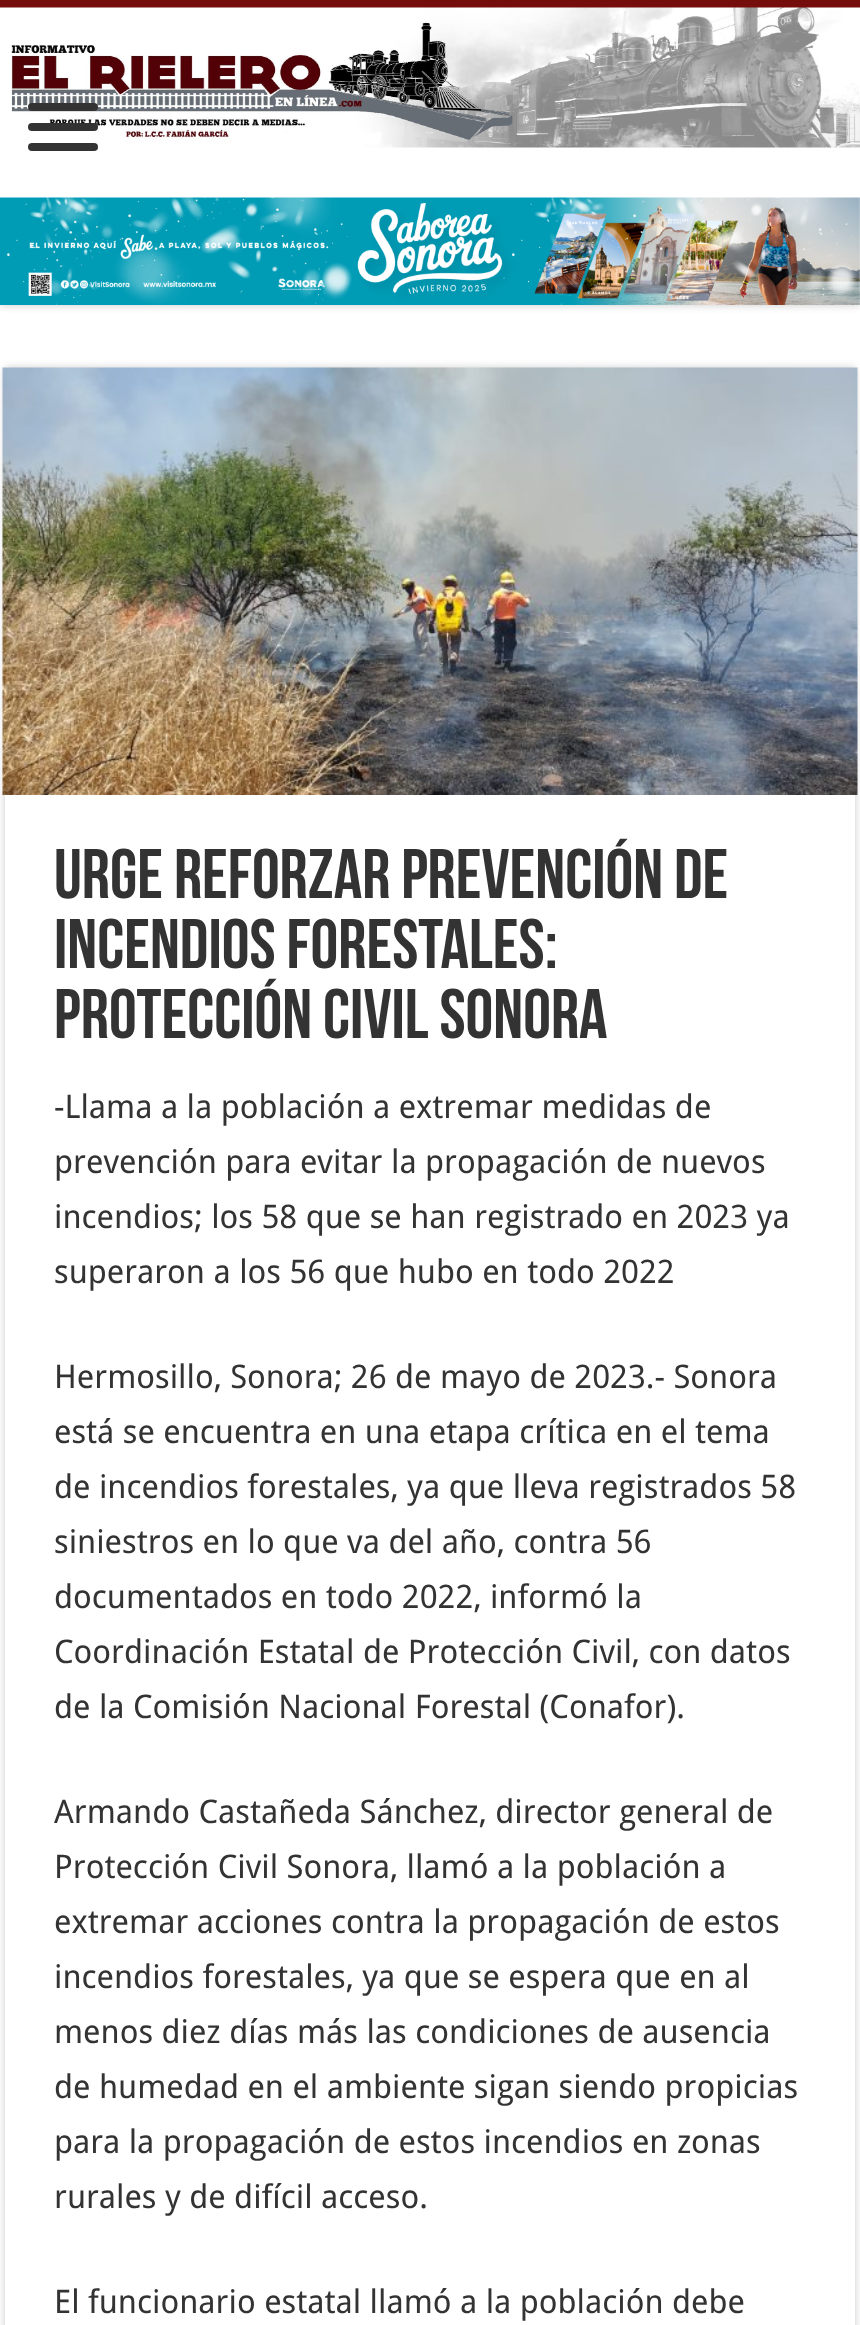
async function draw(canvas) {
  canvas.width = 860
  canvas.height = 2325
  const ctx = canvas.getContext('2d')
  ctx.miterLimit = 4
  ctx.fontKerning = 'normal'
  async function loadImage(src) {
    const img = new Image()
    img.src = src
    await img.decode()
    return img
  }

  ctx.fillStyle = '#fff'
  ctx.fillRect(0, 0, 860, 2325)
  ctx.save()
  ctx.beginPath()
  ctx.rect(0, 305, 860, 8)
  ctx.clip()
  ctx.fillStyle = '#cacaca'
  ctx.filter = 'blur(4px)'
  ctx.beginPath()
  ctx.rect(0, 0, 860, 305)
  ctx.fill()
  ctx.filter = 'none'
  ctx.restore()
  ctx.fillStyle = '#750d0d'
  ctx.fillRect(0, 0, 860, 8)
  ctx.drawImage(await loadImage('image0.png'), 0, 7, 860, 141)
  ctx.fillStyle = '#333'
  ctx.beginPath()
  ctx.roundRect(28, 103, 70, 8, 4)
  ctx.fill()
  ctx.beginPath()
  ctx.roundRect(28, 123, 70, 8, 4)
  ctx.fill()
  ctx.beginPath()
  ctx.roundRect(28, 143, 70, 8, 4)
  ctx.fill()
  ctx.drawImage(await loadImage('image1.png'), 0, 197, 860, 108)
  ctx.save()
  ctx.beginPath()
  ctx.moveTo(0, 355)
  ctx.lineTo(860, 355)
  ctx.lineTo(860, 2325)
  ctx.lineTo(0, 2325)
  ctx.closePath()
  ctx.moveTo(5, 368)
  ctx.lineTo(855, 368)
  ctx.lineTo(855, 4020)
  ctx.lineTo(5, 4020)
  ctx.closePath()
  ctx.clip('evenodd')
  ctx.fillStyle = '#cacaca'
  ctx.filter = 'blur(4px)'
  ctx.beginPath()
  ctx.rect(5, 368, 850, 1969)
  ctx.fill()
  ctx.filter = 'none'
  ctx.restore()
  ctx.drawImage(await loadImage('image2.png'), 2, 367, 856, 428)
  ctx.font = 'bold 70px Bebas Neue'
  ctx.fillText('Urge reforzar prevención de', 54, 898)
  ctx.fillText('incendios forestales:', 54, 968)
  ctx.fillText('Protección Civil Sonora', 54, 1038)
  ctx.font = '32.5px Droid Sans'
  ctx.fillText('-Llama a la población a extremar medidas de', 54, 1118)
  ctx.fillText('prevención para evitar la propagación de nuevos', 54, 1173)
  ctx.fillText('incendios; los 58 que se han registrado en 2023 ya', 54, 1228)
  ctx.fillText('superaron a los 56 que hubo en todo 2022', 54, 1283)
  ctx.fillText('Hermosillo, Sonora; 26 de mayo de 2023.- Sonora', 54, 1388)
  ctx.fillText('está se encuentra en una etapa crítica en el tema', 54, 1443)
  ctx.fillText('de incendios forestales, ya que lleva registrados 58', 54, 1498)
  ctx.fillText('siniestros en lo que va del año, contra 56', 54, 1553)
  ctx.fillText('documentados en todo 2022, informó la', 54, 1608)
  ctx.fillText('Coordinación Estatal de Protección Civil, con datos', 54, 1663)
  ctx.fillText('de la Comisión Nacional Forestal (Conafor).', 54, 1718)
  ctx.fillText('Armando Castañeda Sánchez, director general de', 54, 1823)
  ctx.fillText('Protección Civil Sonora, llamó a la población a', 54, 1878)
  ctx.fillText('extremar acciones contra la propagación de estos', 54, 1933)
  ctx.fillText('incendios forestales, ya que se espera que en al', 54, 1988)
  ctx.fillText('menos diez días más las condiciones de ausencia', 54, 2043)
  ctx.fillText('de humedad en el ambiente sigan siendo propicias', 54, 2098)
  ctx.fillText('para la propagación de estos incendios en zonas', 54, 2153)
  ctx.fillText('rurales y de difícil acceso.', 54, 2208)
  ctx.fillText('El funcionario estatal llamó a la población debe', 54, 2313)
}

draw(document.querySelector('canvas'))
